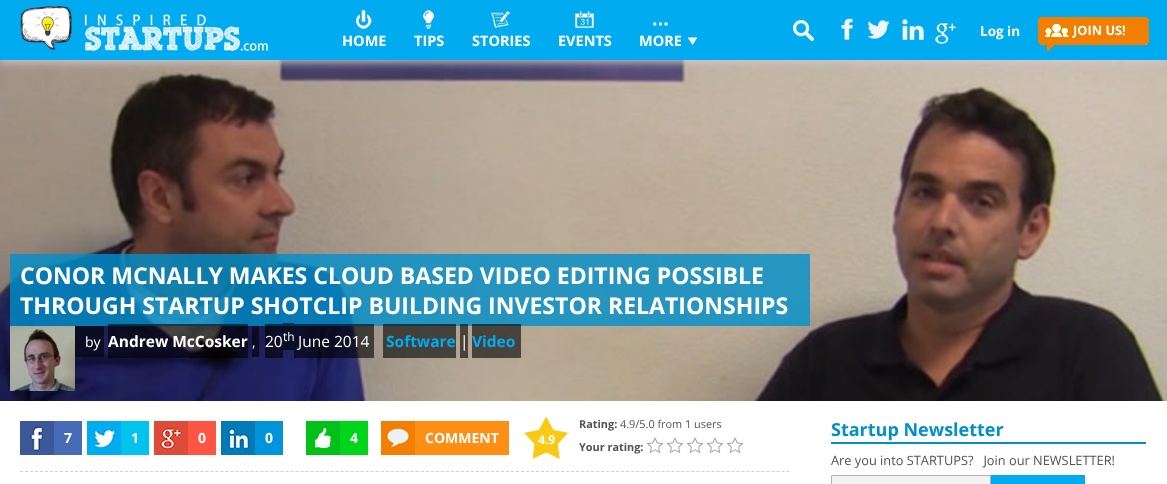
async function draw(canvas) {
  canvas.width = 1167
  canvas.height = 484
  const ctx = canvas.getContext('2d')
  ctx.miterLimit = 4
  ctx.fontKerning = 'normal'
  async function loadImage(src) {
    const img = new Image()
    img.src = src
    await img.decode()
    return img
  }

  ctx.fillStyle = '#fff'
  ctx.fillRect(0, 0, 1167, 484)
  ctx.drawImage(await loadImage('image13.png'), 0, 60, 1167, 341)
  ctx.fillStyle = '#ccc'
  ctx.filter = 'blur(5px)'
  ctx.beginPath()
  ctx.rect(0, 1, 1167, 61)
  ctx.fill()
  ctx.filter = 'none'
  ctx.fillStyle = '#00abf0'
  ctx.fillRect(0, 0, 1167, 60)
  ctx.drawImage(await loadImage('image0.png'), 20, 5, 248, 46)
  ctx.drawImage(await loadImage('image1.png'), 356, 10, 16, 19)
  ctx.font = 'bold 14.5px Open Sans'
  ctx.fillStyle = '#fff'
  ctx.fillText('HOME', 342, 46)
  ctx.drawImage(await loadImage('image2.png'), 423, 10, 11, 19)
  ctx.fillText('TIPS', 414, 46)
  ctx.drawImage(await loadImage('image3.png'), 491, 11, 19, 17)
  ctx.fillText('STORIES', 472, 46)
  ctx.drawImage(await loadImage('image4.png'), 575, 11, 19, 17)
  ctx.fillText('EVENTS', 558, 46)
  ctx.drawImage(await loadImage('image5.png'), 688, 37, 9, 9)
  ctx.drawImage(await loadImage('image6.png'), 653, 22, 15, 4)
  ctx.fillText('MORE', 639, 46)
  ctx.drawImage(await loadImage('image7.png'), 793, 20, 21, 21)
  ctx.drawImage(await loadImage('image8.png'), 841, 18, 12, 22)
  ctx.drawImage(await loadImage('image9.png'), 867, 20, 23, 19)
  ctx.drawImage(await loadImage('image10.png'), 902, 19, 22, 21)
  ctx.drawImage(await loadImage('image11.png'), 935, 23, 21, 21)
  ctx.font = 'bold 13.5px Open Sans'
  ctx.fillText('Log in', 980, 36)
  ctx.drawImage(await loadImage('image12.png'), 1038, 17, 111, 34)
  ctx.font = 'bold 12.8px Open Sans'
  ctx.fillText('JOIN US!', 1073, 35)
  ctx.fillStyle = '#0090cacc'
  ctx.fillRect(10, 254, 800, 72)
  ctx.font = 'bold 23.05px Open Sans'
  ctx.fillStyle = '#fff'
  ctx.fillText('CONOR MCNALLY MAKES CLOUD BASED VIDEO EDITING POSSIBLE', 20, 284)
  ctx.fillText('THROUGH STARTUP SHOTCLIP BUILDING INVESTOR RELATIONSHIPS', 20, 314)
  ctx.drawImage(await loadImage('image14.png'), 10, 326, 65, 65)
  ctx.fillStyle = '#00000099'
  ctx.fillRect(75, 326, 29, 31)
  ctx.font = '14px Open Sans'
  ctx.fillStyle = '#fff'
  ctx.fillText('by', 85, 347)
  ctx.fillStyle = '#00000099'
  ctx.fillRect(108, 324, 140, 34)
  ctx.font = 'bold 15.5px Open Sans'
  ctx.fillStyle = '#fff'
  ctx.fillText('Andrew McCosker', 108, 347)
  ctx.fillStyle = '#00000099'
  ctx.fillRect(252, 326, 7, 31)
  ctx.font = '14px Open Sans'
  ctx.fillStyle = '#fff'
  ctx.fillText(',', 252, 347)
  ctx.fillStyle = '#00000099'
  ctx.fillRect(265, 324, 18, 34)
  ctx.font = '15.5px Open Sans'
  ctx.fillStyle = '#fff'
  ctx.fillText('20', 265, 347)
  ctx.fillStyle = '#00000099'
  ctx.fillRect(283, 323, 11, 27)
  ctx.font = '12px Open Sans'
  ctx.fillStyle = '#fff'
  ctx.fillText('th', 283, 341)
  ctx.fillStyle = '#00000099'
  ctx.fillRect(294, 324, 80, 34)
  ctx.font = '15.5px Open Sans'
  ctx.fillStyle = '#fff'
  ctx.fillText('June 2014', 298, 347)
  ctx.fillStyle = '#00000099'
  ctx.fillRect(383, 324, 73, 34)
  ctx.font = 'bold 15.5px Open Sans'
  ctx.fillStyle = '#00abf0'
  ctx.fillText('Software', 386, 347)
  ctx.fillStyle = '#00000099'
  ctx.fillRect(460, 324, 8, 34)
  ctx.font = '15.5px Open Sans'
  ctx.fillStyle = '#fff'
  ctx.fillText('|', 460, 347)
  ctx.fillStyle = '#00000099'
  ctx.fillRect(472, 324, 49, 34)
  ctx.font = 'bold 15.5px Open Sans'
  ctx.fillStyle = '#00abf0'
  ctx.fillText('Video', 472, 347)
  ctx.fillStyle = '#3b5999'
  ctx.fillRect(20, 421, 34, 34)
  ctx.drawImage(await loadImage('image15.png'), 30, 423, 16, 30)
  ctx.fillStyle = '#476bb6'
  ctx.fillRect(54, 421, 28, 34)
  ctx.font = 'bold 14px Open Sans'
  ctx.fillStyle = '#fff'
  ctx.fillText('7', 64, 443)
  ctx.fillStyle = '#00acee'
  ctx.fillRect(87, 421, 34, 34)
  ctx.drawImage(await loadImage('image16.png'), 89, 423, 30, 26)
  ctx.fillStyle = '#00c4ee'
  ctx.fillRect(121, 421, 28, 34)
  ctx.fillStyle = '#fff'
  ctx.fillText('1', 131, 443)
  ctx.fillStyle = '#de4b39'
  ctx.fillRect(154, 421, 34, 34)
  ctx.drawImage(await loadImage('image17.png'), 156, 423, 30, 30)
  ctx.fillStyle = '#ff5542'
  ctx.fillRect(188, 421, 28, 34)
  ctx.fillStyle = '#fff'
  ctx.fillText('0', 198, 443)
  ctx.fillStyle = '#007bb6'
  ctx.fillRect(221, 421, 34, 34)
  ctx.drawImage(await loadImage('image18.png'), 223, 423, 27, 30)
  ctx.fillStyle = '#0094db'
  ctx.fillRect(255, 421, 28, 34)
  ctx.fillStyle = '#fff'
  ctx.fillText('0', 265, 443)
  ctx.fillStyle = '#01c017'
  ctx.fillRect(306, 421, 34, 34)
  ctx.drawImage(await loadImage('image19.png'), 315, 428, 16, 20)
  ctx.fillStyle = '#00d619'
  ctx.fillRect(340, 421, 28, 34)
  ctx.fillStyle = '#fff'
  ctx.fillText('4', 350, 443)
  ctx.fillStyle = '#f37f01'
  ctx.fillRect(381, 421, 34, 34)
  ctx.drawImage(await loadImage('image20.png'), 386, 428, 24, 20)
  ctx.fillStyle = '#ff8e14'
  ctx.fillRect(415, 421, 94, 34)
  ctx.fillStyle = '#fff'
  ctx.fillText('COMMENT', 425, 443)
  ctx.drawImage(await loadImage('image21.png'), 524, 416, 45, 43)
  ctx.font = 'bold 12px Open Sans'
  ctx.fillText('4.9', 538, 444)
  ctx.font = 'bold 10.9px Open Sans'
  ctx.fillStyle = '#545253'
  ctx.fillText('Rating:', 579, 428)
  ctx.font = '10.9px Open Sans'
  ctx.fillText('4.9/5.0 from 1 users', 620, 428)
  ctx.font = 'bold 10.9px Open Sans'
  ctx.fillText('Your rating:', 579, 451)
  ctx.drawImage(await loadImage('image22.png'), 646, 437, 18, 17)
  ctx.drawImage(await loadImage('image22.png'), 666, 437, 18, 17)
  ctx.drawImage(await loadImage('image22.png'), 686, 437, 18, 17)
  ctx.drawImage(await loadImage('image22.png'), 706, 437, 18, 17)
  ctx.drawImage(await loadImage('image22.png'), 726, 437, 18, 17)
  ctx.beginPath()
  ctx.moveTo(20, 471.5)
  ctx.lineTo(790, 471.5)
  ctx.strokeStyle = '#d1d0d0'
  ctx.setLineDash([3, 2.01])
  ctx.stroke()
  ctx.fillStyle = '#0090ca'
  ctx.fillRect(831, 442, 315, 2)
  ctx.font = 'bold 18px Open Sans'
  ctx.fillText('Startup Newsletter', 831, 436)
  ctx.font = '12.8px Open Sans'
  ctx.fillStyle = '#545253'
  ctx.fillText('Are you into STARTUPS?   Join our NEWSLETTER!', 831, 465)
  ctx.fillStyle = '#f3f3f3'
  ctx.beginPath()
  ctx.rect(831.5, 475.5, 159, 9)
  ctx.fill()
  ctx.strokeStyle = '#b0b1b2'
  ctx.setLineDash([])
  ctx.stroke()
  ctx.fillStyle = '#00abf0'
  ctx.fillRect(991, 475, 94, 9)
}

draw(document.querySelector('canvas'))
